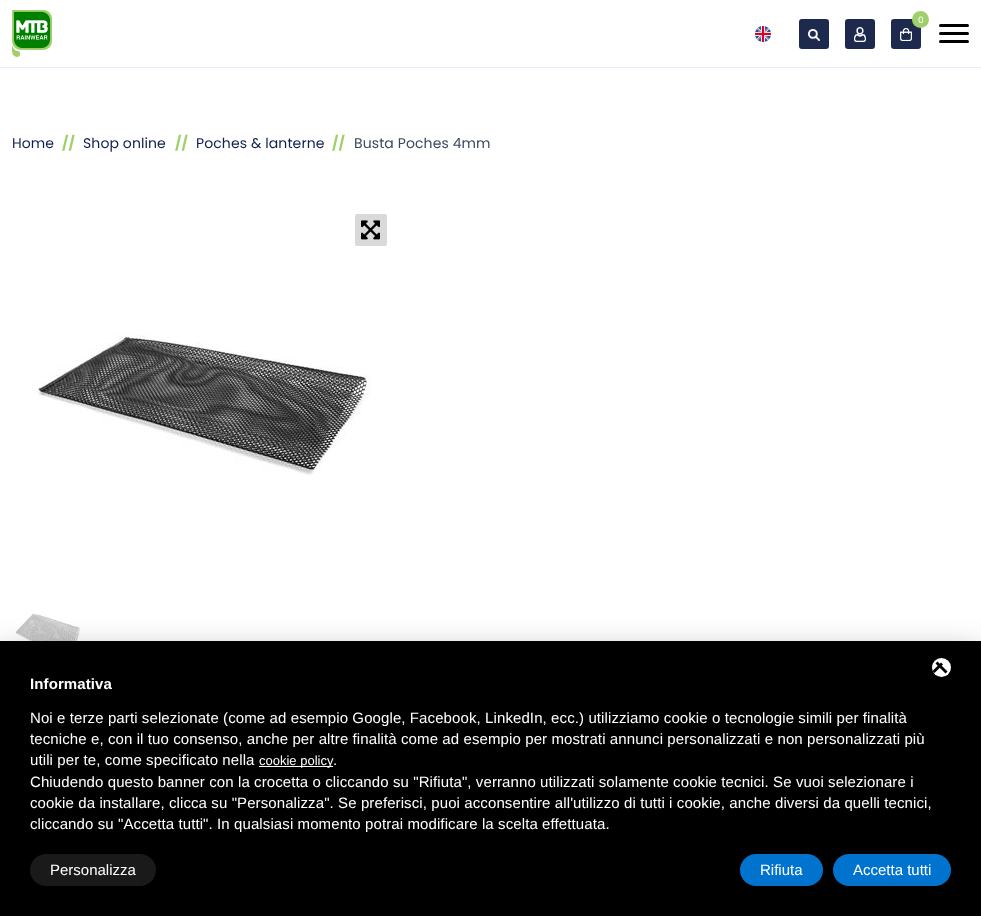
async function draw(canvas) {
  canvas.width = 981
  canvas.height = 916
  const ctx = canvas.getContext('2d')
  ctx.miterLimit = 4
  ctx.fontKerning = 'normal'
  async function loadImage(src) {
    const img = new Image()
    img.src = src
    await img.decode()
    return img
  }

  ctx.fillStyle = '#fff'
  ctx.fillRect(0, 0, 981, 916)
  ctx.fillStyle = '#e4ebff'
  ctx.fillRect(0, 67, 981, 1)
  ctx.drawImage(await loadImage('image0.png'), 12, 10, 40, 47)
  ctx.drawImage(await loadImage('image1.png'), 755, 26, 16, 16)
  ctx.fillStyle = '#1d2a4d'
  ctx.beginPath()
  ctx.roundRect(799, 19, 30, 30, 3)
  ctx.fill()
  ctx.drawImage(await loadImage('image2.png'), 808, 29, 12, 12)
  ctx.beginPath()
  ctx.roundRect(845, 19, 30, 30, 3)
  ctx.fill()
  ctx.drawImage(await loadImage('image3.png'), 854, 27, 12, 15)
  ctx.beginPath()
  ctx.roundRect(891, 19, 30, 30, 3)
  ctx.fill()
  ctx.fillStyle = '#a1cf6b'
  ctx.beginPath()
  ctx.arc(920.5, 19.5, 8.5, 0, 2 * Math.PI)
  ctx.fill()
  ctx.letterSpacing = '0.1px'
  ctx.font = '9px Poppins'
  ctx.fillStyle = '#fff'
  ctx.fillText('0', 918, 23)
  ctx.drawImage(await loadImage('image4.png'), 900, 28, 12, 13)
  ctx.fillStyle = '#000'
  ctx.beginPath()
  ctx.roundRect(939, 32, 30, 3, 1.5)
  ctx.fill()
  ctx.beginPath()
  ctx.roundRect(939, 24, 30, 3, 1.5)
  ctx.fill()
  ctx.beginPath()
  ctx.roundRect(939, 40, 30, 3, 1.5)
  ctx.fill()
  ctx.font = '14px Poppins'
  ctx.fillStyle = '#0e204d'
  ctx.fillText('Home', 12, 148)
  ctx.font = 'bold 14px Poppins'
  ctx.fillStyle = '#a1cf6b'
  ctx.fillText('//', 62, 148)
  ctx.font = '14px Poppins'
  ctx.fillStyle = '#0e204d'
  ctx.fillText('Shop online', 83, 148)
  ctx.font = 'bold 14px Poppins'
  ctx.fillStyle = '#a1cf6b'
  ctx.fillText('//', 175, 148)
  ctx.font = '14px Poppins'
  ctx.fillStyle = '#0e204d'
  ctx.fillText('Poches & lanterne', 196, 148)
  ctx.font = 'bold 14px Poppins'
  ctx.fillStyle = '#a1cf6b'
  ctx.fillText('//', 332, 148)
  ctx.font = '14px Poppins'
  ctx.fillStyle = '#3b485e'
  ctx.fillText('Busta Poches 4mm', 354, 148)
  ctx.fillStyle = '#d9d9d9'
  ctx.beginPath()
  ctx.roundRect(355, 214, 32, 32, 2)
  ctx.fill()
  ctx.drawImage(await loadImage('image5.png'), 361, 220, 19, 20)
  ctx.drawImage(await loadImage('image6.png'), 35, 334, 336, 141)
  ctx.drawImage(await loadImage('image7.png'), 16, 613, 64, 28)
  ctx.fillStyle = '#00000054'
  ctx.filter = 'blur(15px)'
  ctx.beginPath()
  ctx.rect(0, 651, 981, 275)
  ctx.fill()
  ctx.filter = 'none'
  ctx.fillStyle = '#000'
  ctx.fillRect(0, 641, 981, 275)
  ctx.fillStyle = '#fff'
  ctx.beginPath()
  ctx.arc(941.5, 667.5, 9.5, 0, 2 * Math.PI)
  ctx.fill()
  ctx.fillStyle = '#000'
  ctx.beginPath()
  ctx.moveTo(935.5, 663.5)
  ctx.lineTo(937.5, 661.5)
  ctx.lineTo(947.5, 671.5)
  ctx.lineTo(945.5, 673.5)
  ctx.closePath()
  ctx.fill()
  ctx.beginPath()
  ctx.moveTo(941, 662.5)
  ctx.lineTo(943, 664.5)
  ctx.lineTo(934.5, 673)
  ctx.lineTo(932.5, 671)
  ctx.closePath()
  ctx.fill()
  ctx.font = 'bold 15px Liberation Sans'
  ctx.fillStyle = '#fff'
  ctx.fillText('Informativa', 30, 689)
  ctx.font = '15px Liberation Sans'
  ctx.fillText('Noi e terze parti selezionate (come ad esempio Google, Facebook, LinkedIn, ecc.) utilizziamo cookie o tecnologie simili per finalità', 30, 723)
  ctx.fillText('tecniche e, con il tuo consenso, anche per altre finalità come ad esempio per mostrati annunci personalizzati e non personalizzati più', 30, 744)
  ctx.fillText('utili per te, come specificato nella', 30, 765)
  ctx.fillRect(259, 766, 74, 1)
  ctx.letterSpacing = '0px'
  ctx.font = '13px Liberation Sans'
  ctx.fillText('cookie policy', 259, 765)
  ctx.letterSpacing = '0.1px'
  ctx.font = '15px Liberation Sans'
  ctx.fillText('.', 333, 765)
  ctx.fillText('Chiudendo questo banner con la crocetta o cliccando su "Rifiuta", verranno utilizzati solamente cookie tecnici. Se vuoi selezionare i', 30, 787)
  ctx.fillText('cookie da installare, clicca su "Personalizza". Se preferisci, puoi acconsentire all\'utilizzo di tutti i cookie, anche diversi da quelli tecnici,', 30, 808)
  ctx.fillText('cliccando su "Accetta tutti". In qualsiasi momento potrai modificare la scelta effettuata.', 30, 829)
  ctx.fillStyle = '#1a1a1a'
  ctx.beginPath()
  ctx.roundRect(30, 854, 126, 32, 16)
  ctx.fill()
  ctx.letterSpacing = '0px'
  ctx.fillStyle = '#fff'
  ctx.fillText('Personalizza', 50, 875)
  ctx.fillStyle = '#0073ce'
  ctx.beginPath()
  ctx.roundRect(740, 854, 83, 32, 16)
  ctx.fill()
  ctx.fillStyle = '#fff'
  ctx.fillText('Rifiuta', 760, 875)
  ctx.fillStyle = '#0073ce'
  ctx.beginPath()
  ctx.roundRect(833, 854, 118, 32, 16)
  ctx.fill()
  ctx.fillStyle = '#fff'
  ctx.fillText('Accetta tutti', 853, 875)
}

draw(document.querySelector('canvas'))
